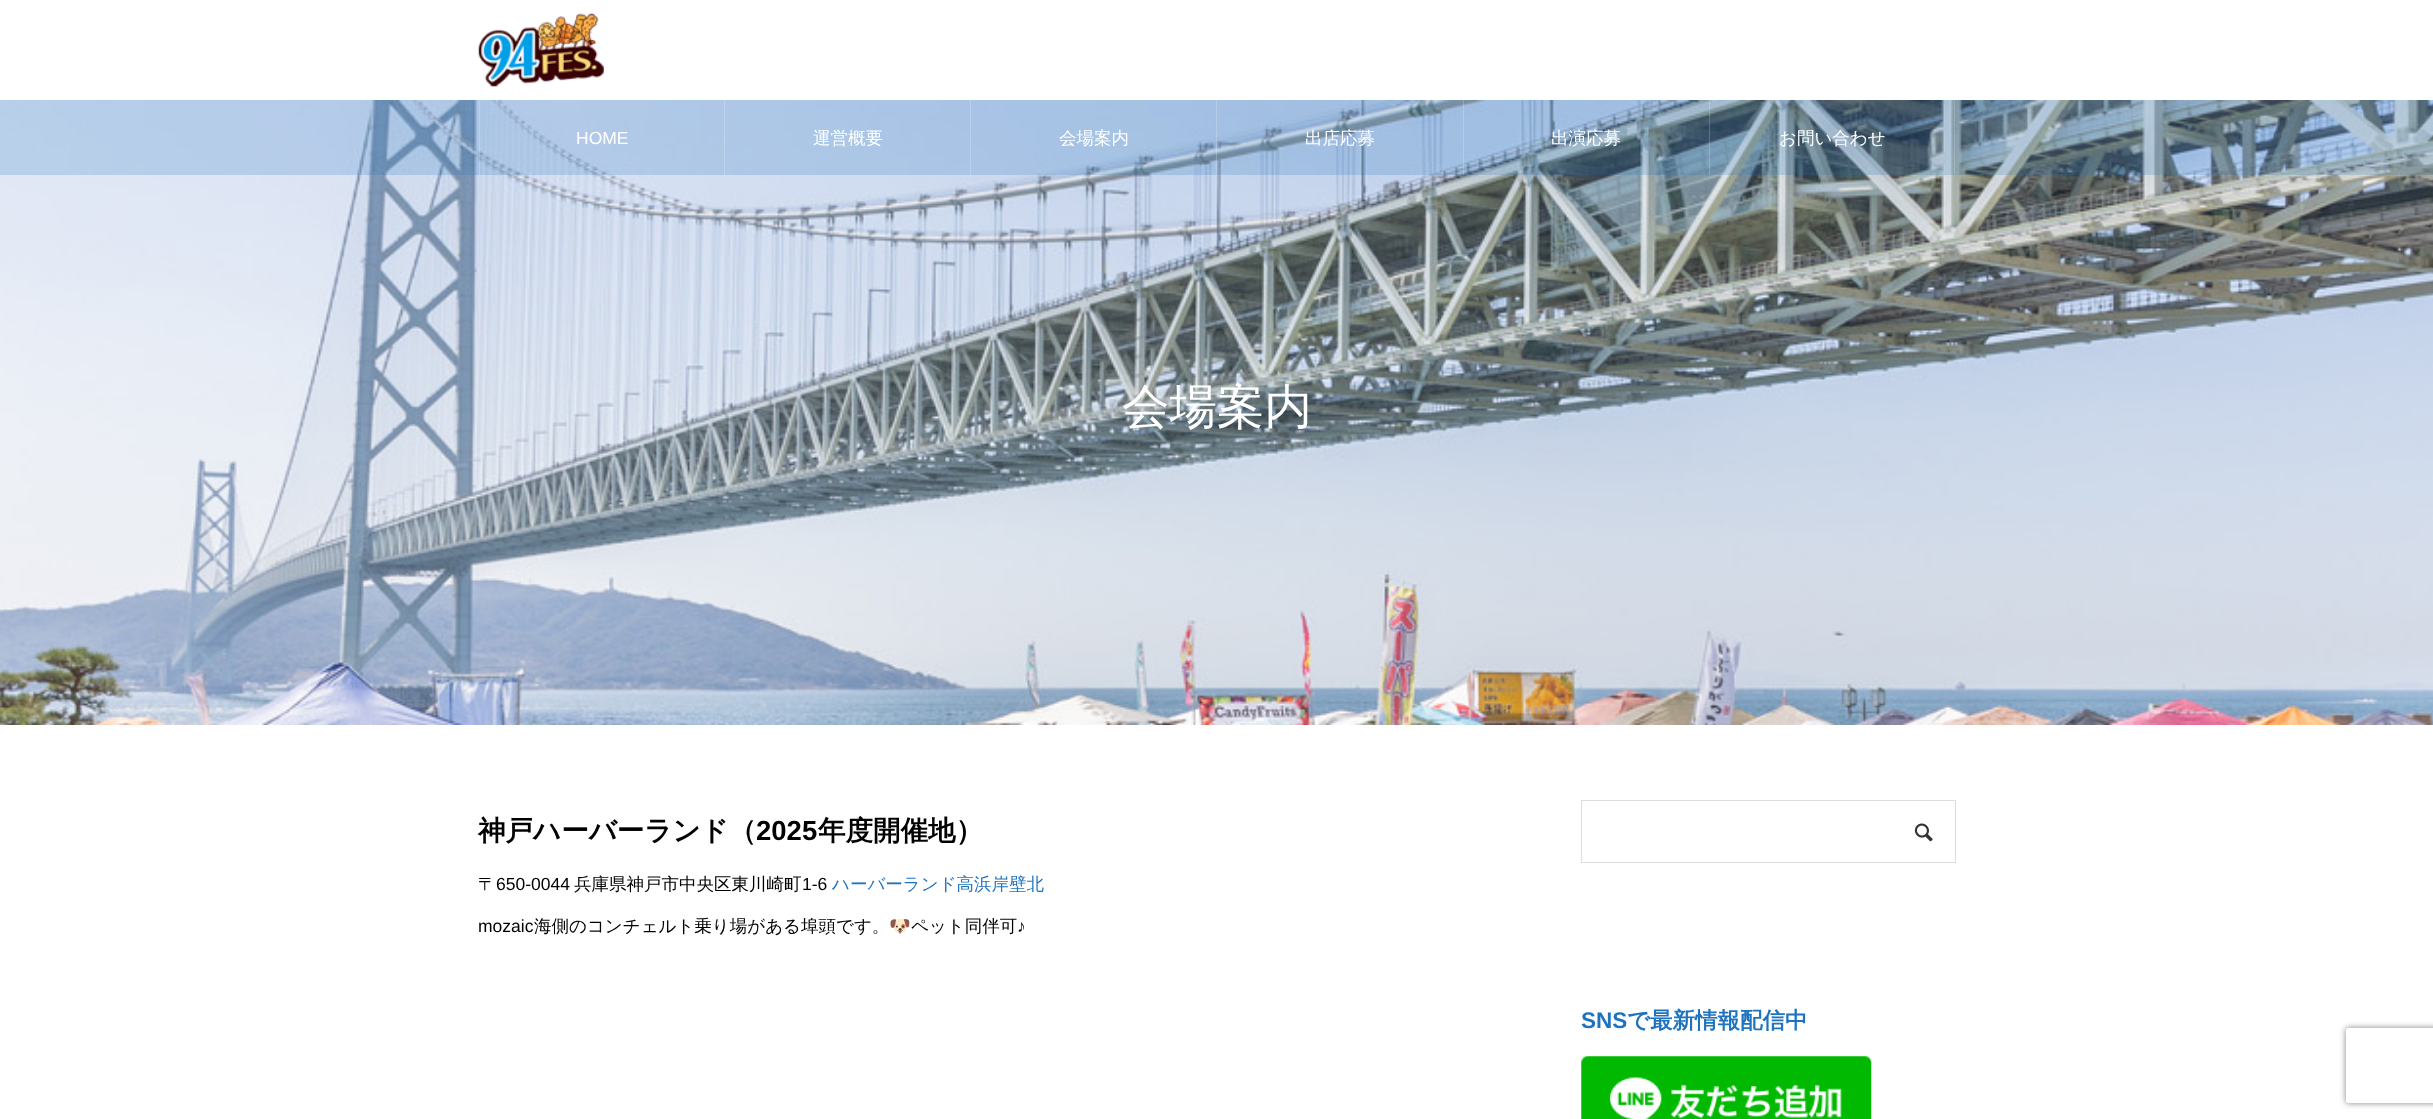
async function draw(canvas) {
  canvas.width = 2433
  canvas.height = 1119
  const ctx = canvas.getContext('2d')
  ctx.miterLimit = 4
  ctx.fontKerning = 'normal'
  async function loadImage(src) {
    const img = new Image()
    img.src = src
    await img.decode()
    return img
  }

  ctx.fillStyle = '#fff'
  ctx.fillRect(0, 0, 2433, 1119)
  ctx.drawImage(await loadImage('image0.png'), 478, 13, 126, 74)
  ctx.drawImage(await loadImage('image1.png'), 0, 100, 2433, 625)
  ctx.fillStyle = '#1e73be33'
  ctx.fillRect(0, 100, 2433, 75)
  ctx.fillStyle = '#ffffff33'
  ctx.fillRect(479, 100, 1, 75)
  ctx.fillStyle = '#bfd3eb'
  ctx.fillRect(724, 100, 1, 75)
  ctx.font = '17.5px Liberation Sans'
  ctx.fillStyle = '#fff'
  ctx.fillText('HOME', 576, 144)
  ctx.fillStyle = '#bbd0eb'
  ctx.fillRect(970, 100, 1, 75)
  ctx.font = '500 17.5px WenQuanYi Zen Hei'
  ctx.fillStyle = '#fff'
  ctx.fillText('運営概要', 813, 144)
  ctx.fillStyle = '#ffffff33'
  ctx.fillRect(1216, 100, 1, 75)
  ctx.fillStyle = '#fff'
  ctx.fillText('会場案内', 1059, 144)
  ctx.fillStyle = '#ffffff33'
  ctx.fillRect(1463, 100, 1, 75)
  ctx.fillStyle = '#fff'
  ctx.fillText('出店応募', 1305, 144)
  ctx.fillStyle = '#ffffff33'
  ctx.fillRect(1709, 100, 1, 75)
  ctx.fillStyle = '#fff'
  ctx.fillText('出演応募', 1551, 144)
  ctx.fillStyle = '#ffffff33'
  ctx.fillRect(1954, 100, 1, 75)
  ctx.fillStyle = '#fff'
  ctx.fillText('お問い合わせ', 1779, 144)
  ctx.font = '500 47.5px WenQuanYi Zen Hei'
  ctx.fillText('会場案内', 1122, 423)
  ctx.font = 'bold 27.5px WenQuanYi Zen Hei'
  ctx.fillStyle = '#000'
  ctx.fillText('神戸ハーバーランド（', 478, 840)
  ctx.font = 'bold 27.5px Liberation Sans'
  ctx.fillText('2025', 756, 840)
  ctx.font = 'bold 27.5px WenQuanYi Zen Hei'
  ctx.fillText('年度開催地）', 818, 840)
  ctx.font = '500 17.5px WenQuanYi Zen Hei'
  ctx.fillText('〒', 478, 890)
  ctx.font = '17.5px Liberation Sans'
  ctx.fillText('650-0044', 496, 890)
  ctx.font = '500 17.5px WenQuanYi Zen Hei'
  ctx.fillText('兵庫県神戸市中央区東川崎町', 574, 890)
  ctx.font = '17.5px Liberation Sans'
  ctx.fillText('1-6', 802, 890)
  ctx.font = '500 17.5px WenQuanYi Zen Hei'
  ctx.fillStyle = '#1e73be'
  ctx.fillText('ハーバーランド高浜岸壁北', 832, 890)
  ctx.font = '17.5px Liberation Sans'
  ctx.fillStyle = '#000'
  ctx.fillText('mozaic', 478, 932)
  ctx.font = '500 17.5px WenQuanYi Zen Hei'
  ctx.fillText('海側のコンチェルト乗り場がある埠頭です。', 534, 932)
  ctx.font = '17.5px Noto Color Emoji'
  ctx.fillText('🐶', 889, 932)
  ctx.font = '500 17.5px WenQuanYi Zen Hei'
  ctx.fillText('ペット同伴可', 911, 932)
  ctx.font = '17.5px Liberation Sans'
  ctx.fillText('♪', 1017, 932)
  ctx.strokeStyle = '#ddd'
  ctx.strokeRect(1581.5, 800.5, 374, 62)
  ctx.drawImage(await loadImage('image2.png'), 1914, 823, 19, 19)
  ctx.font = 'bold 22.5px Liberation Sans'
  ctx.fillStyle = '#1e73be'
  ctx.fillText('SNS', 1581, 1028)
  ctx.font = 'bold 22.5px WenQuanYi Zen Hei'
  ctx.fillText('で最新情報配信中', 1627, 1028)
  ctx.drawImage(await loadImage('image3.png'), 1581, 1056, 291, 63)
  ctx.save()
  ctx.beginPath()
  ctx.moveTo(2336, 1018)
  ctx.lineTo(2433, 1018)
  ctx.lineTo(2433, 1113)
  ctx.lineTo(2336, 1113)
  ctx.closePath()
  ctx.moveTo(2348.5, 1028)
  ctx.lineTo(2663.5, 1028)
  ctx.bezierCurveTo(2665, 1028, 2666, 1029, 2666, 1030.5)
  ctx.lineTo(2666, 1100.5)
  ctx.bezierCurveTo(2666, 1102, 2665, 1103, 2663.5, 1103)
  ctx.lineTo(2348.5, 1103)
  ctx.bezierCurveTo(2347, 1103, 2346, 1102, 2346, 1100.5)
  ctx.lineTo(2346, 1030.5)
  ctx.bezierCurveTo(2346, 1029, 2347, 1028, 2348.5, 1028)
  ctx.closePath()
  ctx.clip('evenodd')
  ctx.fillStyle = '#808080'
  ctx.filter = 'blur(3px)'
  ctx.beginPath()
  ctx.roundRect(2346, 1028, 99, 75, 2.5)
  ctx.fill()
  ctx.filter = 'none'
  ctx.restore()
}

draw(document.querySelector('canvas'))
